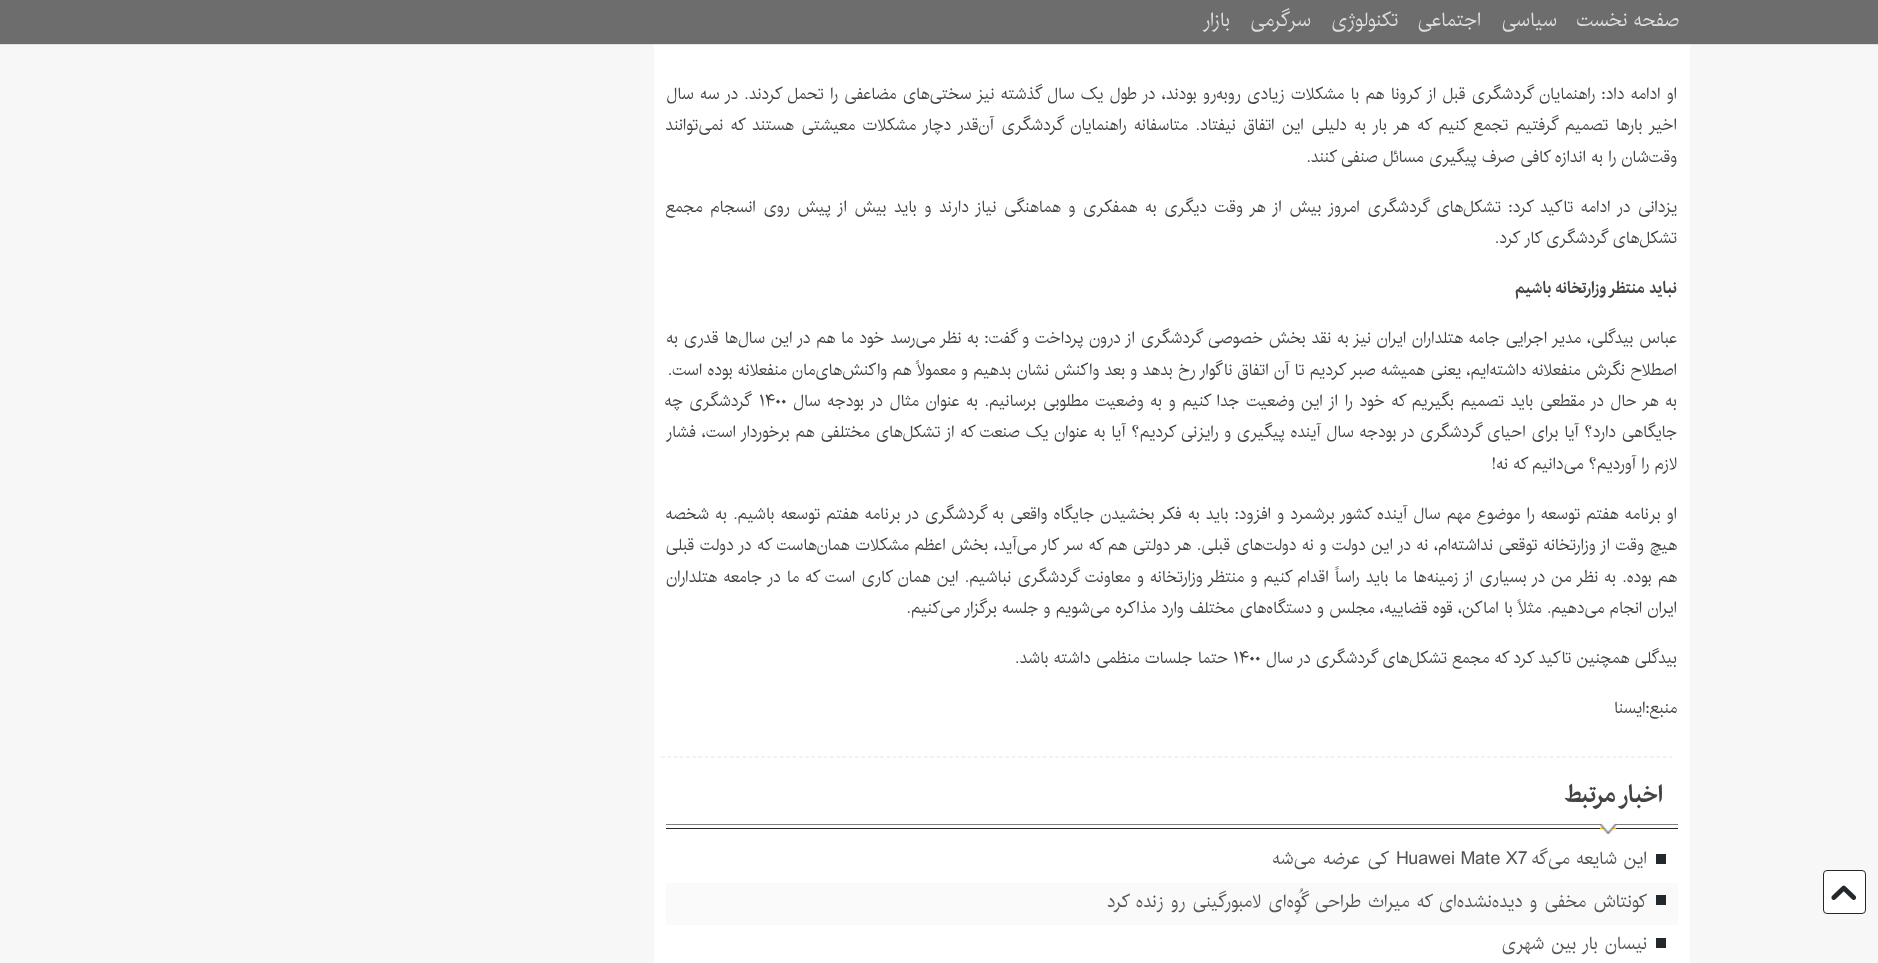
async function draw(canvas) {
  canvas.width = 1878
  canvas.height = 963
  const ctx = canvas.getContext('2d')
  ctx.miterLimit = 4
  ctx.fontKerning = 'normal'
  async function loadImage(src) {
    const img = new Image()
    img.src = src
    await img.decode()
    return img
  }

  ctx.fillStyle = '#f7f7f7'
  ctx.fillRect(0, 0, 1878, 963)
  ctx.fillStyle = '#fff'
  ctx.fillRect(654, 0, 1036, 963)
  ctx.save()
  ctx.beginPath()
  ctx.moveTo(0, 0)
  ctx.lineTo(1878, 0)
  ctx.lineTo(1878, 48)
  ctx.lineTo(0, 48)
  ctx.closePath()
  ctx.moveTo(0, 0)
  ctx.lineTo(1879, 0)
  ctx.lineTo(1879, 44)
  ctx.lineTo(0, 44)
  ctx.closePath()
  ctx.clip('evenodd')
  ctx.fillStyle = '#00000017'
  ctx.filter = 'blur(0.5px)'
  ctx.beginPath()
  ctx.rect(0, 1, 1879, 44)
  ctx.fill()
  ctx.filter = 'none'
  ctx.restore()
  ctx.fillStyle = '#646464f0'
  ctx.fillRect(0, 0, 1878, 44)
  ctx.direction = 'rtl'
  ctx.font = '19.5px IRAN'
  ctx.fillStyle = '#dedede'
  ctx.fillText('صفحه نخست', 1679, 26)
  ctx.fillText('سیاسی', 1557, 26)
  ctx.fillText('اجتماعی', 1481, 26)
  ctx.fillText('تکنولوژی', 1398, 26)
  ctx.fillText('سرگرمی', 1311, 26)
  ctx.fillText('بازار', 1230, 26)
  ctx.fillStyle = '#fff'
  ctx.beginPath()
  ctx.roundRect(1823.5, 870.5, 42, 43, 3.5)
  ctx.fill()
  ctx.strokeStyle = '#23282d'
  ctx.stroke()
  ctx.drawImage(await loadImage('image0.png'), 1831, 885, 26, 15)
  ctx.wordSpacing = '1.05px'
  ctx.font = '16.5px IRAN'
  ctx.fillStyle = '#444'
  ctx.fillText('او ادامه داد: راهنمایان گردشگری قبل از کرونا هم با مشکلات زیادی روبه‌رو بودند، در طول یک سال گذشته نیز سختی‌های مضاعفی را تحمل کردند. در سه سال', 1677, 99)
  ctx.wordSpacing = '2.4px'
  ctx.fillText('اخیر بارها تصمیم گرفتیم تجمع کنیم که هر بار به دلیلی این اتفاق نیفتاد. متاسفانه راهنمایان گردشگری آن‌قدر دچار مشکلات معیشتی هستند که نمی‌توانند', 1677, 130)
  ctx.wordSpacing = '0px'
  ctx.fillText('وقت‌شان را به اندازه کافی صرف پیگیری مسائل صنفی کنند.', 1677, 162)
  ctx.wordSpacing = '2.4px'
  ctx.fillText('یزدانی در ادامه تاکید کرد: تشکل‌های گردشگری امروز بیش از هر وقت دیگری به همفکری و هماهنگی نیاز دارند و باید بیش از پیش روی انسجام مجمع', 1677, 212)
  ctx.wordSpacing = '0px'
  ctx.fillText('تشکل‌های گردشگری کار کرد.', 1677, 243)
  ctx.font = 'bold 16.5px IRAN'
  ctx.fillText('نباید منتظر وزارتخانه باشیم', 1677, 293)
  ctx.wordSpacing = '0.55px'
  ctx.font = '16.5px IRAN'
  ctx.fillText('عباس بیدگلی، مدیر اجرایی جامه هتلداران ایران نیز به نقد بخش خصوصی گردشگری از درون پرداخت و گفت: به نظر می‌رسد خود ما هم در این سال‌ها قدری به', 1677, 343)
  ctx.wordSpacing = '0px'
  ctx.fillText('اصطلاح نگرش منفعلانه داشته‌ایم، یعنی همیشه صبر کردیم تا آن اتفاق ناگوار رخ بدهد و بعد واکنش نشان بدهیم و معمولاً هم واکنش‌های‌مان منفعلانه بوده است.', 1677, 375)
  ctx.wordSpacing = '1.5px'
  ctx.fillText('به هر حال در مقطعی باید تصمیم بگیریم که خود را از این وضعیت جدا کنیم و به وضعیت مطلوبی برسانیم. به عنوان مثال در بودجه سال', 1677, 406)
  ctx.wordSpacing = '0px'
  ctx.direction = 'ltr'
  ctx.fillText('۱۴۰۰', 759, 406)
  ctx.wordSpacing = '1px'
  ctx.direction = 'rtl'
  ctx.fillText('گردشگری چه', 752, 406)
  ctx.wordSpacing = '0.55px'
  ctx.fillText('جایگاهی دارد؟ آیا برای احیای گردشگری در بودجه سال آینده پیگیری و رایزنی کردیم؟ آیا به عنوان یک صنعت که از تشکل‌های مختلفی هم برخوردار است، فشار', 1677, 437)
  ctx.wordSpacing = '0px'
  ctx.fillText('لازم را آوردیم؟ می‌دانیم که نه!', 1677, 469)
  ctx.wordSpacing = '0.9px'
  ctx.fillText('او برنامه هفتم توسعه را موضوع مهم سال آینده کشور برشمرد و افزود: باید به فکر بخشیدن جایگاه واقعی به گردشگری در برنامه هفتم توسعه باشیم. به شخصه', 1677, 519)
  ctx.wordSpacing = '0.5px'
  ctx.fillText('هیچ وقت از وزارتخانه توقعی نداشته‌ام، نه در این دولت و نه دولت‌های قبلی. هر دولتی هم که سر کار می‌آید، بخش اعظم مشکلات همان‌هاست که در دولت قبلی', 1677, 550)
  ctx.wordSpacing = '1px'
  ctx.fillText('هم بوده. به نظر من در بسیاری از زمینه‌ها ما باید راساً اقدام کنیم و منتظر وزارتخانه و معاونت گردشگری نباشیم. این همان کاری است که ما در جامعه هتلداران', 1677, 582)
  ctx.wordSpacing = '0px'
  ctx.fillText('ایران انجام می‌دهیم. مثلاً با اماکن، قوه قضاییه، مجلس و دستگاه‌های مختلف وارد مذاکره می‌شویم و جلسه برگزار می‌کنیم.', 1677, 613)
  ctx.fillText('بیدگلی همچنین تاکید کرد که مجمع تشکل‌های گردشگری در سال', 1677, 663)
  ctx.direction = 'ltr'
  ctx.fillText('۱۴۰۰', 1233, 663)
  ctx.direction = 'rtl'
  ctx.fillText('حتما جلسات منظمی داشته باشد.', 1228, 663)
  ctx.fillText('منبع:ایسنا', 1677, 713)
  ctx.beginPath()
  ctx.moveTo(661, 757)
  ctx.lineTo(1672.5, 757)
  ctx.strokeStyle = '#e5e5e5'
  ctx.lineWidth = 1.2
  ctx.setLineDash([3.75, 2.51])
  ctx.stroke()
  ctx.fillStyle = '#23282d'
  ctx.fillRect(666, 828, 1012, 1)
  ctx.fillStyle = '#7e7e7e'
  ctx.fillRect(666, 824, 1012, 1)
  ctx.font = 'bold 24px IRAN'
  ctx.fillStyle = '#444'
  ctx.fillText('اخبار مرتبط', 1663, 802)
  ctx.drawImage(await loadImage('image1.png'), 1600, 824, 17, 10)
  ctx.fillStyle = '#23282d'
  ctx.fillRect(1656, 854, 10, 10)
  ctx.letterSpacing = '-0.25px'
  ctx.wordSpacing = '1px'
  ctx.font = '17.9px IRAN'
  ctx.fillStyle = '#555'
  ctx.fillText('این شایعه می‌گه', 1647, 864)
  ctx.wordSpacing = '0px'
  ctx.direction = 'ltr'
  ctx.fillText('Huawei Mate X7', 1396, 864)
  ctx.wordSpacing = '2px'
  ctx.direction = 'rtl'
  ctx.fillText('کی عرضه می‌شه', 1389, 864)
  ctx.fillStyle = '#fafafa'
  ctx.fillRect(666, 883, 1012, 42)
  ctx.fillStyle = '#23282d'
  ctx.fillRect(1656, 895, 10, 10)
  ctx.wordSpacing = '1.6px'
  ctx.fillStyle = '#555'
  ctx.fillText('کونتاش مخفی و دیده‌نشده‌ای که میراث طراحی گُوِه‌ای لامبورگینی رو زنده کرد', 1647, 907)
  ctx.fillStyle = '#23282d'
  ctx.fillRect(1656, 938, 10, 10)
  ctx.wordSpacing = '1.5px'
  ctx.fillStyle = '#555'
  ctx.fillText('نیسان بار بین شهری', 1647, 949)
}

draw(document.querySelector('canvas'))
